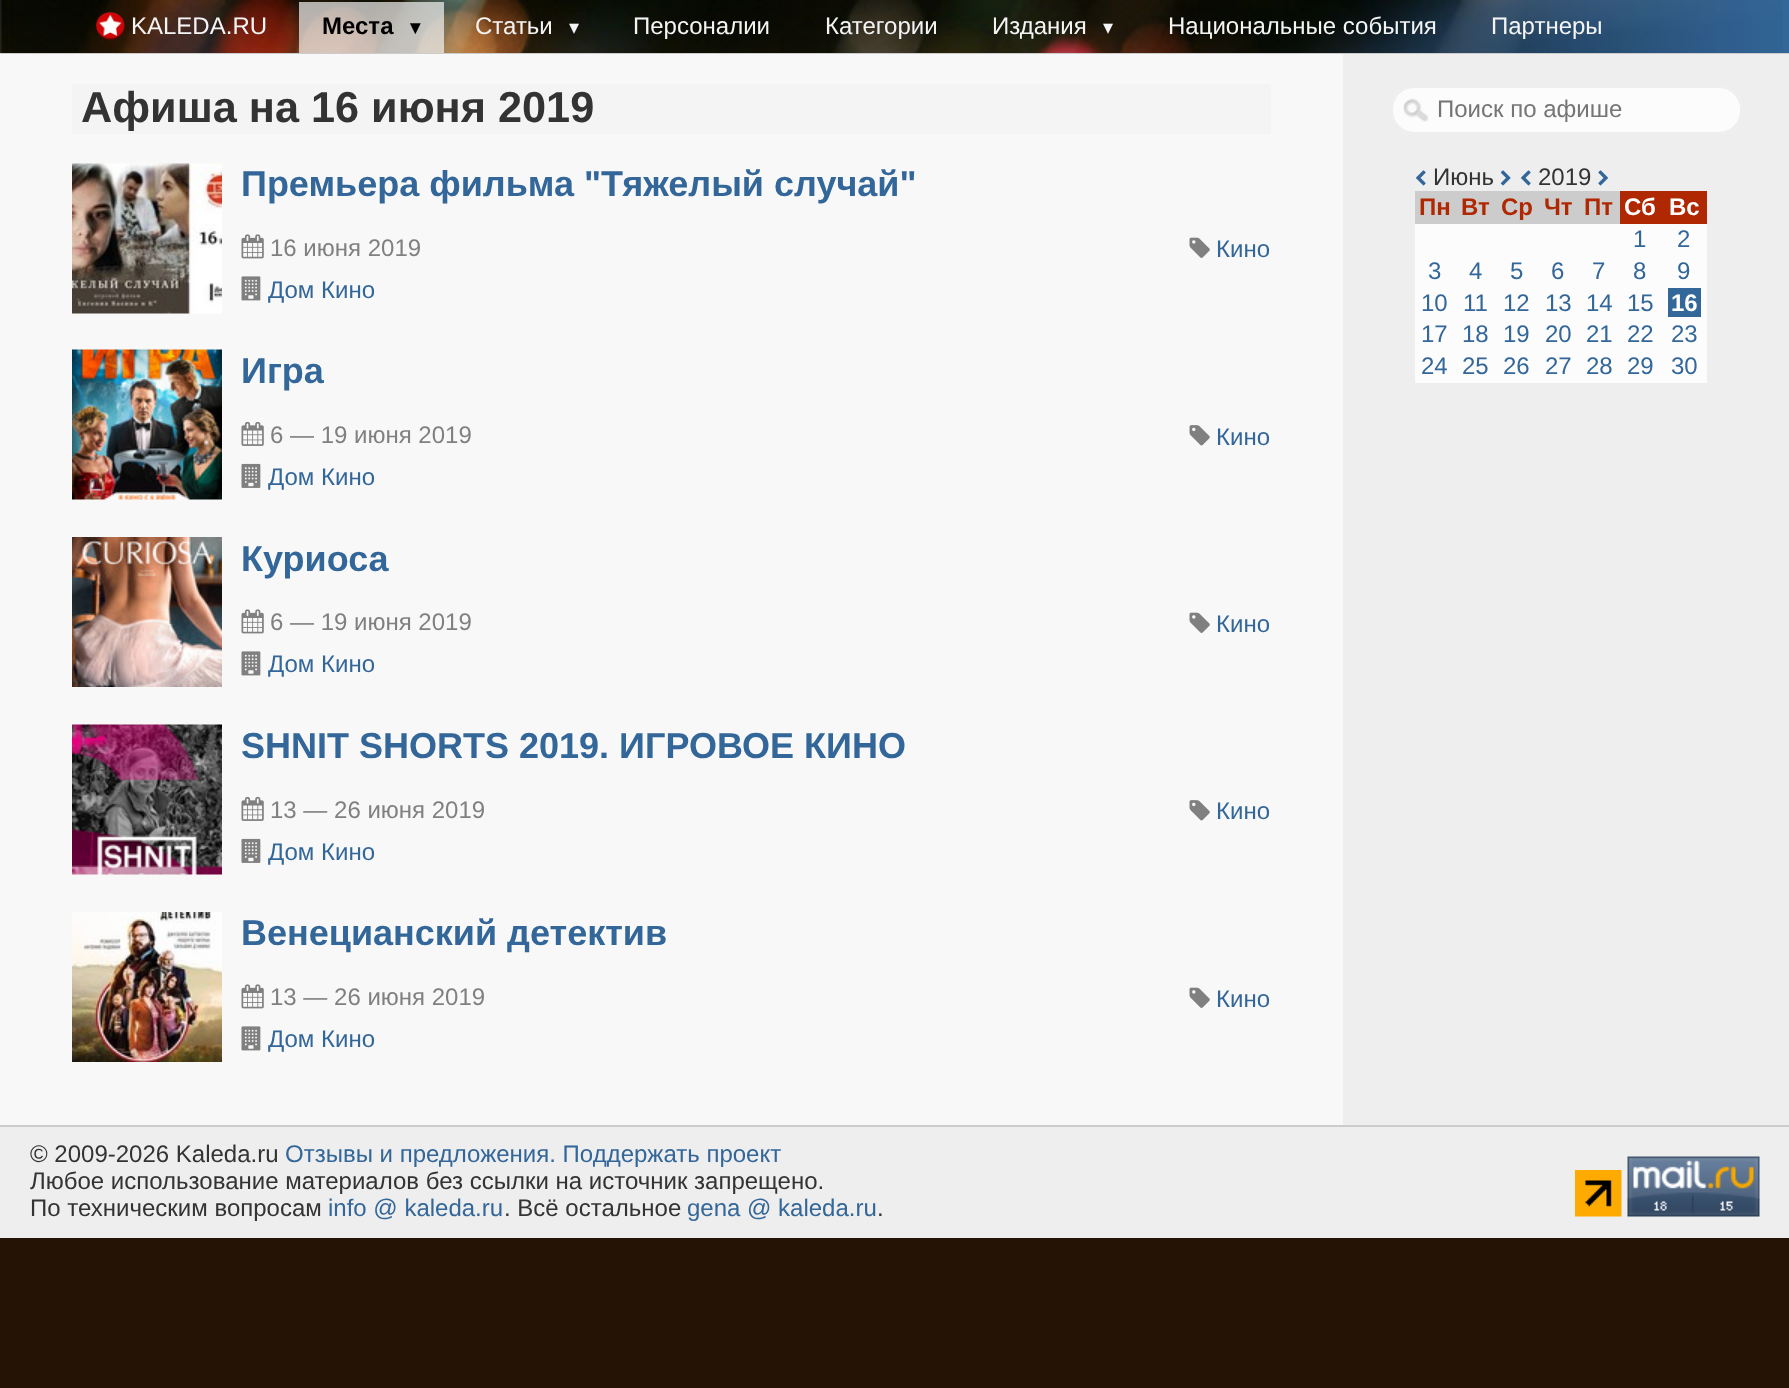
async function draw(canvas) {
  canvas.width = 1789
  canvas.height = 1388
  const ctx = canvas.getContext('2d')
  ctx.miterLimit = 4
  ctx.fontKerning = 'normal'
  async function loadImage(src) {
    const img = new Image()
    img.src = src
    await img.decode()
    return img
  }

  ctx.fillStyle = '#251405'
  ctx.fillRect(0, 0, 1789, 1388)
  ctx.fillStyle = '#369'
  ctx.fillRect(1783, 0, 6, 53)
  ctx.drawImage(await loadImage('image0.png'), 0, 0, 1783, 53)
  ctx.fillStyle = '#ccc'
  ctx.fillRect(0, 53, 1789, 1)
  ctx.drawImage(await loadImage('image1.png'), 96, 12, 29, 29)
  ctx.font = '24px Liberation Sans'
  ctx.fillStyle = '#f4f4f4'
  ctx.fillText('KALEDA.RU', 131, 34)
  ctx.fillStyle = '#f4f4f4b3'
  ctx.fillRect(299, 2, 145, 51)
  ctx.font = 'bold 24px Liberation Sans'
  ctx.fillStyle = '#000'
  ctx.fillText('Места', 322, 34)
  ctx.font = 'bold 20px DejaVu Sans'
  ctx.fillText('▾', 410, 34)
  ctx.font = '24px Liberation Sans'
  ctx.fillStyle = '#f4f4f4'
  ctx.fillText('Статьи', 475, 34)
  ctx.font = '20px DejaVu Sans'
  ctx.fillText('▾', 569, 34)
  ctx.font = '24px Liberation Sans'
  ctx.fillText('Персоналии', 633, 34)
  ctx.fillText('Категории', 825, 34)
  ctx.fillText('Издания', 992, 34)
  ctx.font = '20px DejaVu Sans'
  ctx.fillText('▾', 1103, 34)
  ctx.font = '24px Liberation Sans'
  ctx.fillText('Национальные события', 1168, 34)
  ctx.fillText('Партнеры', 1491, 34)
  ctx.fillStyle = '#f8f8f8'
  ctx.fillRect(0, 54, 1343, 1071)
  ctx.fillStyle = '#f4f4f4'
  ctx.fillRect(72, 84, 1199, 50)
  ctx.font = 'bold 43.25px Liberation Sans'
  ctx.fillStyle = '#333'
  ctx.fillText('Афиша на 16 июня 2019', 81, 122)
  ctx.drawImage(await loadImage('image2.png'), 72, 163, 150, 151)
  ctx.font = 'bold 36px Liberation Sans'
  ctx.fillStyle = '#369'
  ctx.fillText('Премьера фильма "Тяжелый случай"', 241, 196)
  ctx.drawImage(await loadImage('image3.png'), 241, 234, 23, 25)
  ctx.font = '24px Liberation Sans'
  ctx.fillStyle = '#808080'
  ctx.fillText('16 июня 2019', 270, 256)
  ctx.drawImage(await loadImage('image4.png'), 241, 276, 20, 25)
  ctx.fillStyle = '#369'
  ctx.fillText('Дом Кино', 268, 298)
  ctx.drawImage(await loadImage('image5.png'), 1189, 237, 21, 21)
  ctx.fillText('Кино', 1216, 257)
  ctx.drawImage(await loadImage('image6.png'), 72, 349, 150, 151)
  ctx.font = 'bold 36px Liberation Sans'
  ctx.fillText('Игра', 241, 383)
  ctx.drawImage(await loadImage('image7.png'), 241, 421, 23, 25)
  ctx.font = '24px Liberation Sans'
  ctx.fillStyle = '#808080'
  ctx.fillText('6 — 19 июня 2019', 270, 443)
  ctx.drawImage(await loadImage('image8.png'), 241, 463, 20, 25)
  ctx.fillStyle = '#369'
  ctx.fillText('Дом Кино', 268, 485)
  ctx.drawImage(await loadImage('image9.png'), 1189, 425, 21, 21)
  ctx.fillText('Кино', 1216, 445)
  ctx.drawImage(await loadImage('image10.png'), 72, 537, 150, 150)
  ctx.font = 'bold 36px Liberation Sans'
  ctx.fillText('Куриоса', 241, 571)
  ctx.drawImage(await loadImage('image3.png'), 241, 609, 23, 25)
  ctx.font = '24px Liberation Sans'
  ctx.fillStyle = '#808080'
  ctx.fillText('6 — 19 июня 2019', 270, 630)
  ctx.drawImage(await loadImage('image4.png'), 241, 651, 20, 25)
  ctx.fillStyle = '#369'
  ctx.fillText('Дом Кино', 268, 672)
  ctx.drawImage(await loadImage('image5.png'), 1189, 612, 21, 21)
  ctx.fillText('Кино', 1216, 632)
  ctx.drawImage(await loadImage('image11.png'), 72, 724, 150, 151)
  ctx.font = 'bold 36px Liberation Sans'
  ctx.fillText('SHNIT SHORTS 2019. ИГРОВОЕ КИНО', 241, 758)
  ctx.drawImage(await loadImage('image7.png'), 241, 796, 23, 25)
  ctx.font = '24px Liberation Sans'
  ctx.fillStyle = '#808080'
  ctx.fillText('13 — 26 июня 2019', 270, 818)
  ctx.drawImage(await loadImage('image8.png'), 241, 838, 20, 25)
  ctx.fillStyle = '#369'
  ctx.fillText('Дом Кино', 268, 860)
  ctx.drawImage(await loadImage('image9.png'), 1189, 800, 21, 21)
  ctx.fillText('Кино', 1216, 819)
  ctx.drawImage(await loadImage('image12.png'), 72, 912, 150, 150)
  ctx.font = 'bold 36px Liberation Sans'
  ctx.fillText('Венецианский детектив', 241, 945)
  ctx.drawImage(await loadImage('image3.png'), 241, 984, 23, 25)
  ctx.font = '24px Liberation Sans'
  ctx.fillStyle = '#808080'
  ctx.fillText('13 — 26 июня 2019', 270, 1005)
  ctx.drawImage(await loadImage('image4.png'), 241, 1026, 20, 25)
  ctx.fillStyle = '#369'
  ctx.fillText('Дом Кино', 268, 1047)
  ctx.drawImage(await loadImage('image5.png'), 1189, 987, 21, 21)
  ctx.fillText('Кино', 1216, 1007)
  ctx.fillStyle = '#eee'
  ctx.fillRect(1343, 54, 446, 1071)
  ctx.fillStyle = '#fcfcfc'
  ctx.beginPath()
  ctx.roundRect(1391, 86, 351, 48, 23)
  ctx.fill()
  ctx.drawImage(await loadImage('image13.png'), 1403, 98, 26, 24)
  ctx.beginPath()
  ctx.roundRect(1392, 87, 349, 46, 22)
  ctx.strokeStyle = '#eee'
  ctx.lineWidth = 2
  ctx.stroke()
  ctx.fillStyle = '#757575'
  ctx.fillText('Поиск по афише', 1437, 117)
  ctx.drawImage(await loadImage('image14.png'), 1416, 170, 10, 16)
  ctx.fillStyle = '#333'
  ctx.fillText('Июнь', 1433, 185)
  ctx.drawImage(await loadImage('image15.png'), 1500, 170, 11, 16)
  ctx.drawImage(await loadImage('image14.png'), 1521, 170, 10, 16)
  ctx.fillText('2019', 1538, 185)
  ctx.drawImage(await loadImage('image16.png'), 1598, 170, 10, 16)
  ctx.fillStyle = '#fcfcfc'
  ctx.fillRect(1415, 224, 292, 159)
  ctx.fillStyle = '#ccc'
  ctx.fillRect(1415, 191, 205, 33)
  ctx.font = 'bold 24px Liberation Sans'
  ctx.fillStyle = '#b02802'
  ctx.fillText('Пн', 1419, 215)
  ctx.fillText('Вт', 1461, 215)
  ctx.fillText('Ср', 1501, 215)
  ctx.fillText('Чт', 1544, 215)
  ctx.fillText('Пт', 1584, 215)
  ctx.fillRect(1620, 191, 87, 33)
  ctx.fillStyle = '#fff'
  ctx.fillText('Сб', 1624, 215)
  ctx.fillText('Вс', 1669, 215)
  ctx.font = '24px Liberation Sans'
  ctx.fillStyle = '#369'
  ctx.fillText('1', 1633, 247)
  ctx.fillText('2', 1677, 247)
  ctx.fillText('3', 1428, 279)
  ctx.fillText('4', 1469, 279)
  ctx.fillText('5', 1510, 279)
  ctx.fillText('6', 1551, 279)
  ctx.fillText('7', 1592, 279)
  ctx.fillText('8', 1633, 279)
  ctx.fillText('9', 1677, 279)
  ctx.fillText('10', 1421, 311)
  ctx.fillText('11', 1463, 311)
  ctx.fillText('12', 1503, 311)
  ctx.fillText('13', 1545, 311)
  ctx.fillText('14', 1586, 311)
  ctx.fillText('15', 1627, 311)
  ctx.fillRect(1668, 288, 33, 29)
  ctx.font = 'bold 24px Liberation Sans'
  ctx.fillStyle = '#fff'
  ctx.fillText('16', 1671, 311)
  ctx.font = '24px Liberation Sans'
  ctx.fillStyle = '#369'
  ctx.fillText('17', 1421, 342)
  ctx.fillText('18', 1462, 342)
  ctx.fillText('19', 1503, 342)
  ctx.fillText('20', 1545, 342)
  ctx.fillText('21', 1586, 342)
  ctx.fillText('22', 1627, 342)
  ctx.fillText('23', 1671, 342)
  ctx.fillText('24', 1421, 374)
  ctx.fillText('25', 1462, 374)
  ctx.fillText('26', 1503, 374)
  ctx.fillText('27', 1545, 374)
  ctx.fillText('28', 1586, 374)
  ctx.fillText('29', 1627, 374)
  ctx.fillText('30', 1671, 374)
  ctx.fillStyle = '#eee'
  ctx.fillRect(0, 1127, 1789, 111)
  ctx.fillStyle = '#ccc'
  ctx.fillRect(0, 1125, 1789, 2)
  ctx.fillStyle = '#333'
  ctx.fillText('© 2009-2026 Kaleda.ru', 30, 1162)
  ctx.fillStyle = '#369'
  ctx.fillText('Oтзывы и предложения. Поддержать проект', 285, 1162)
  ctx.fillStyle = '#333'
  ctx.fillText('Любое использование материалов без ссылки на источник запрещено.', 30, 1189)
  ctx.fillText('По техническим вопросам', 30, 1216)
  ctx.fillStyle = '#369'
  ctx.fillText('info @ kaleda.ru', 328, 1216)
  ctx.fillStyle = '#333'
  ctx.fillText('. Всё остальное', 504, 1216)
  ctx.fillStyle = '#369'
  ctx.fillText('gena @ kaleda.ru', 687, 1216)
  ctx.fillStyle = '#333'
  ctx.fillText('.', 877, 1216)
  ctx.drawImage(await loadImage('image17.png'), 1575, 1170, 47, 47)
  ctx.drawImage(await loadImage('image18.png'), 1627, 1156, 133, 61)
}

draw(document.querySelector('canvas'))
